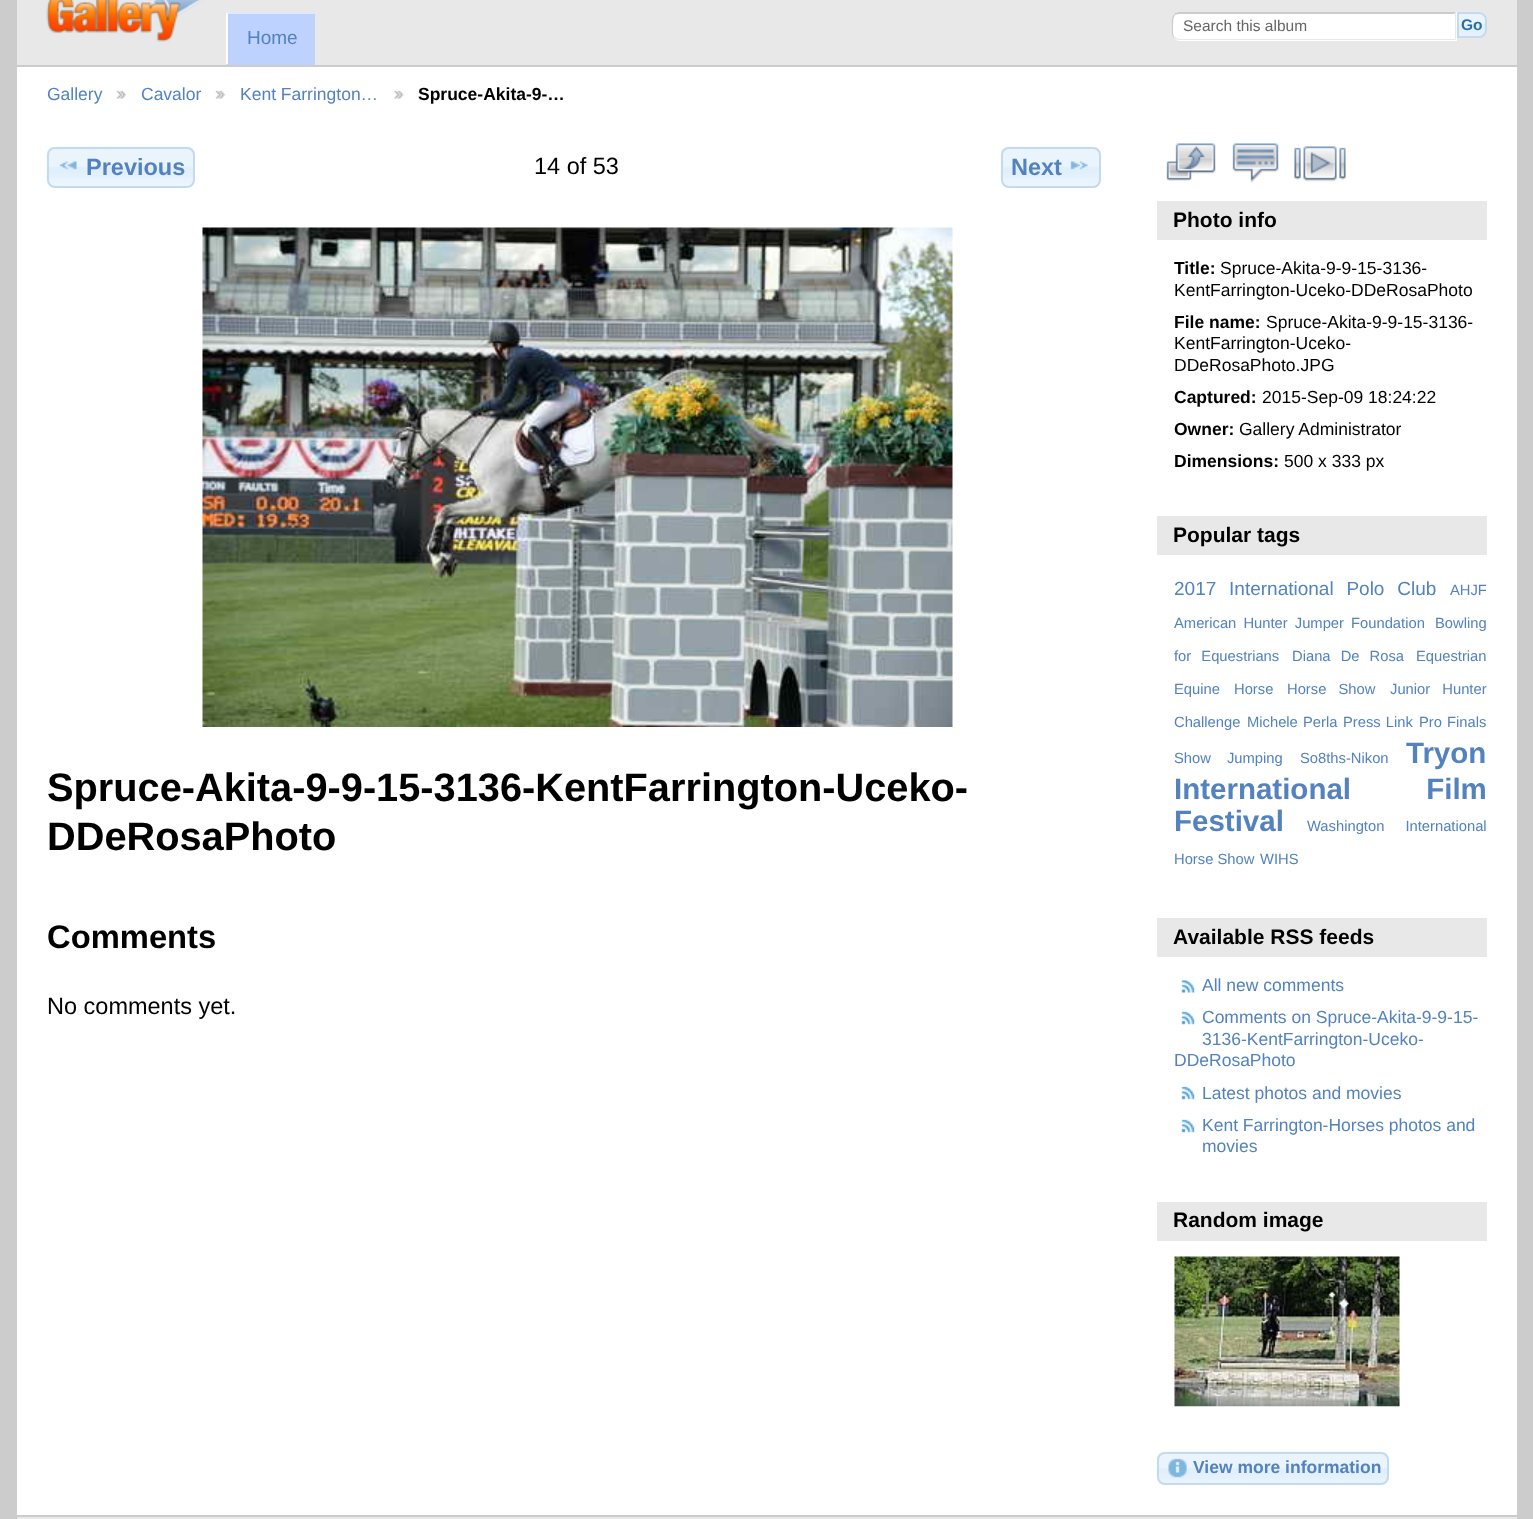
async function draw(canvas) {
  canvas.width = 1533
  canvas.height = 1519
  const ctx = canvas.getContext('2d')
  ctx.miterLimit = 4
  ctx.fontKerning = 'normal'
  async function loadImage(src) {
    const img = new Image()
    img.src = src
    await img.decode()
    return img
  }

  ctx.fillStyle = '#ccc'
  ctx.fillRect(0, 0, 1533, 1519)
  ctx.fillStyle = '#fff'
  ctx.fillRect(17, 67, 1500, 1448)
  ctx.fillStyle = '#e8e8e8'
  ctx.fillRect(17, 0, 1500, 65)
  ctx.drawImage(await loadImage('image0.png'), 46, 0, 158, 42)
  ctx.fillStyle = '#fff'
  ctx.beginPath()
  ctx.roundRect(1172, 12, 285, 29, [8, 0, 0, 8])
  ctx.fill()
  ctx.fillStyle = '#ccc'
  ctx.beginPath()
  ctx.moveTo(1179, 12)
  ctx.bezierCurveTo(1177, 12, 1175, 13, 1174, 14)
  ctx.lineTo(1175, 15)
  ctx.bezierCurveTo(1176, 15, 1177, 14, 1179, 14)
  ctx.lineTo(1454, 14)
  ctx.lineTo(1456, 12)
  ctx.closePath()
  ctx.fill()
  ctx.fillStyle = '#e8e8e8'
  ctx.beginPath()
  ctx.moveTo(1456, 12.5)
  ctx.lineTo(1456, 40)
  ctx.lineTo(1455, 39)
  ctx.lineTo(1455, 14)
  ctx.lineTo(1454.5, 14)
  ctx.closePath()
  ctx.fill()
  ctx.beginPath()
  ctx.moveTo(1456, 40)
  ctx.lineTo(1455, 39)
  ctx.lineTo(1178, 39)
  ctx.lineTo(1175, 37)
  ctx.lineTo(1174, 38)
  ctx.bezierCurveTo(1175, 39, 1177, 40, 1179, 40)
  ctx.closePath()
  ctx.fill()
  ctx.fillStyle = '#ccc'
  ctx.beginPath()
  ctx.moveTo(1174, 14.5)
  ctx.bezierCurveTo(1171, 17.5, 1172, 22.5, 1172, 26.5)
  ctx.bezierCurveTo(1172, 30, 1171, 35, 1174, 38)
  ctx.lineTo(1174.5, 37.5)
  ctx.bezierCurveTo(1173.5, 36, 1173.5, 34.5, 1173, 33)
  ctx.bezierCurveTo(1173, 30.5, 1173, 21, 1173.5, 18.5)
  ctx.bezierCurveTo(1173.5, 17.5, 1174, 16.5, 1175, 15.5)
  ctx.closePath()
  ctx.fill()
  ctx.font = '15.5px Liberation Sans'
  ctx.fillStyle = '#666'
  ctx.fillText('Search this album', 1183, 31)
  ctx.drawImage(await loadImage('image1.png'), 1456, 11, 30, 26)
  ctx.beginPath()
  ctx.roundRect(1458, 13, 28, 24, [0, 7, 7, 0])
  ctx.strokeStyle = '#c5dbec'
  ctx.lineWidth = 2
  ctx.stroke()
  ctx.font = 'bold 15.5px Liberation Sans'
  ctx.fillStyle = '#2e6e9e'
  ctx.fillText('Go', 1461, 30)
  ctx.fillStyle = '#bdd2ff'
  ctx.fillRect(227, 13, 88, 52)
  ctx.fillStyle = '#dee9ff'
  ctx.beginPath()
  ctx.moveTo(226, 12)
  ctx.lineTo(315, 12)
  ctx.lineTo(315, 14)
  ctx.lineTo(228, 14)
  ctx.closePath()
  ctx.fill()
  ctx.fillStyle = '#fff'
  ctx.beginPath()
  ctx.moveTo(226, 64)
  ctx.lineTo(226, 12)
  ctx.lineTo(228, 14)
  ctx.lineTo(228, 64)
  ctx.closePath()
  ctx.fill()
  ctx.font = '19px Liberation Sans'
  ctx.fillStyle = '#5382bf'
  ctx.fillText('Home', 247, 44)
  ctx.font = '17.5px Liberation Sans'
  ctx.fillText('Gallery', 47, 100)
  ctx.drawImage(await loadImage('image2.png'), 116, 90, 11, 9)
  ctx.fillText('Cavalor', 141, 100)
  ctx.drawImage(await loadImage('image2.png'), 215, 90, 11, 9)
  ctx.fillText('Kent Farrington…', 240, 100)
  ctx.drawImage(await loadImage('image3.png'), 394, 90, 10, 9)
  ctx.font = 'bold 17.5px Liberation Sans'
  ctx.fillStyle = '#000'
  ctx.fillText('Spruce-Akita-9-…', 418, 100)
  ctx.drawImage(await loadImage('image4.png'), 46, 146, 149, 41)
  ctx.beginPath()
  ctx.roundRect(48, 148, 146, 39, 7)
  ctx.stroke()
  ctx.drawImage(await loadImage('image5.png'), 59, 161, 18, 9)
  ctx.font = 'bold 23.5px Liberation Sans'
  ctx.fillStyle = '#5382bf'
  ctx.fillText('Previous', 86, 175)
  ctx.font = '23.5px Liberation Sans'
  ctx.fillStyle = '#000'
  ctx.fillText('14 of 53', 534, 174)
  ctx.drawImage(await loadImage('image6.png'), 1000, 146, 101, 41)
  ctx.beginPath()
  ctx.roundRect(1002, 148, 98, 39, 7)
  ctx.stroke()
  ctx.font = 'bold 23.5px Liberation Sans'
  ctx.fillStyle = '#5382bf'
  ctx.fillText('Next', 1011, 175)
  ctx.drawImage(await loadImage('image7.png'), 1070, 161, 18, 9)
  ctx.drawImage(await loadImage('image8.png'), 202, 227, 751, 500)
  ctx.font = 'bold 39.75px Liberation Sans'
  ctx.fillStyle = '#000'
  ctx.fillText('Spruce-Akita-9-9-15-3136-KentFarrington-Uceko-', 47, 801)
  ctx.fillText('DDeRosaPhoto', 47, 850)
  ctx.font = 'bold 32.75px Liberation Sans'
  ctx.fillText('Comments', 47, 948)
  ctx.font = '23.5px Liberation Sans'
  ctx.fillText('No comments yet.', 47, 1014)
  ctx.drawImage(await loadImage('image9.png'), 1166, 143, 50, 38)
  ctx.drawImage(await loadImage('image10.png'), 1232, 143, 47, 40)
  ctx.drawImage(await loadImage('image11.png'), 1294, 146, 52, 36)
  ctx.fillStyle = '#e8e8e8'
  ctx.fillRect(1157, 201, 330, 39)
  ctx.font = 'bold 21px Liberation Sans'
  ctx.fillStyle = '#000'
  ctx.fillText('Photo info', 1173, 227)
  ctx.font = 'bold 17.5px Liberation Sans'
  ctx.fillText('Title:', 1174, 274)
  ctx.font = '17.5px Liberation Sans'
  ctx.fillText('Spruce-Akita-9-9-15-3136-', 1220, 274)
  ctx.fillText('KentFarrington-Uceko-DDeRosaPhoto', 1174, 296)
  ctx.font = 'bold 17.5px Liberation Sans'
  ctx.fillText('File name:', 1174, 328)
  ctx.font = '17.5px Liberation Sans'
  ctx.fillText('Spruce-Akita-9-9-15-3136-', 1266, 328)
  ctx.fillText('KentFarrington-Uceko-', 1174, 349)
  ctx.fillText('DDeRosaPhoto.JPG', 1174, 371)
  ctx.font = 'bold 17.5px Liberation Sans'
  ctx.fillText('Captured:', 1174, 403)
  ctx.font = '17.5px Liberation Sans'
  ctx.fillText('2015-Sep-09 18:24:22', 1262, 403)
  ctx.font = 'bold 17.5px Liberation Sans'
  ctx.fillText('Owner:', 1174, 435)
  ctx.font = '17.5px Liberation Sans'
  ctx.fillText('Gallery Administrator', 1239, 435)
  ctx.font = 'bold 17.5px Liberation Sans'
  ctx.fillText('Dimensions:', 1174, 467)
  ctx.font = '17.5px Liberation Sans'
  ctx.fillText('500 x 333 px', 1284, 467)
  ctx.fillStyle = '#e8e8e8'
  ctx.fillRect(1157, 516, 330, 39)
  ctx.font = 'bold 21px Liberation Sans'
  ctx.fillStyle = '#000'
  ctx.fillText('Popular tags', 1173, 542)
  ctx.wordSpacing = '7.5px'
  ctx.font = '19px Liberation Sans'
  ctx.fillStyle = '#5382bf'
  ctx.fillText('2017 International Polo Club', 1174, 595)
  ctx.wordSpacing = '0px'
  ctx.font = '14.75px Liberation Sans'
  ctx.fillText('AHJF', 1450, 595)
  ctx.wordSpacing = '3px'
  ctx.fillText('American Hunter Jumper Foundation', 1174, 628)
  ctx.wordSpacing = '0px'
  ctx.fillText('Bowling', 1435, 628)
  ctx.wordSpacing = '6px'
  ctx.fillText('for Equestrians', 1174, 661)
  ctx.fillText('Diana De Rosa', 1292, 661)
  ctx.wordSpacing = '0px'
  ctx.fillText('Equestrian', 1416, 661)
  ctx.fillText('Equine', 1174, 694)
  ctx.fillText('Horse', 1234, 694)
  ctx.wordSpacing = '8px'
  ctx.fillText('Horse Show', 1287, 694)
  ctx.fillText('Junior Hunter', 1390, 694)
  ctx.wordSpacing = '0px'
  ctx.fillText('Challenge', 1174, 727)
  ctx.wordSpacing = '1px'
  ctx.fillText('Michele Perla', 1247, 727)
  ctx.fillText('Press Link', 1343, 727)
  ctx.fillText('Pro Finals', 1419, 727)
  ctx.wordSpacing = '12px'
  ctx.fillText('Show Jumping', 1174, 763)
  ctx.wordSpacing = '0px'
  ctx.fillText('So8ths-Nikon', 1300, 763)
  ctx.font = 'bold 29.5px Liberation Sans'
  ctx.fillText('Tryon', 1406, 763)
  ctx.wordSpacing = '67px'
  ctx.fillText('International Film', 1174, 799)
  ctx.wordSpacing = '0px'
  ctx.fillText('Festival', 1174, 831)
  ctx.wordSpacing = '17px'
  ctx.font = '14.75px Liberation Sans'
  ctx.fillText('Washington International', 1307, 831)
  ctx.wordSpacing = '0px'
  ctx.fillText('Horse Show', 1174, 864)
  ctx.fillText('WIHS', 1260, 864)
  ctx.fillStyle = '#e8e8e8'
  ctx.fillRect(1157, 918, 330, 39)
  ctx.font = 'bold 21px Liberation Sans'
  ctx.fillStyle = '#000'
  ctx.fillText('Available RSS feeds', 1173, 944)
  ctx.drawImage(await loadImage('image12.png'), 1181, 980, 14, 13)
  ctx.font = '17.5px Liberation Sans'
  ctx.fillStyle = '#5382bf'
  ctx.fillText('All new comments', 1202, 991)
  ctx.drawImage(await loadImage('image13.png'), 1181, 1011, 14, 14)
  ctx.fillText('Comments on Spruce-Akita-9-9-15-', 1202, 1023)
  ctx.fillText('3136-KentFarrington-Uceko-', 1202, 1045)
  ctx.fillText('DDeRosaPhoto', 1174, 1066)
  ctx.drawImage(await loadImage('image13.png'), 1181, 1086, 14, 14)
  ctx.fillText('Latest photos and movies', 1202, 1099)
  ctx.drawImage(await loadImage('image13.png'), 1181, 1119, 14, 14)
  ctx.fillText('Kent Farrington-Horses photos and', 1202, 1131)
  ctx.fillText('movies', 1202, 1152)
  ctx.fillStyle = '#e8e8e8'
  ctx.fillRect(1157, 1202, 330, 39)
  ctx.font = 'bold 21px Liberation Sans'
  ctx.fillStyle = '#000'
  ctx.fillText('Random image', 1173, 1227)
  ctx.drawImage(await loadImage('image14.png'), 1174, 1256, 226, 151)
  ctx.drawImage(await loadImage('image15.png'), 1156, 1451, 233, 33)
  ctx.beginPath()
  ctx.roundRect(1158, 1453, 230, 31, 7)
  ctx.stroke()
  ctx.drawImage(await loadImage('image16.png'), 1168, 1458, 19, 20)
  ctx.font = 'bold 17.5px Liberation Sans'
  ctx.fillStyle = '#5382bf'
  ctx.fillText('View more information', 1193, 1473)
  ctx.fillStyle = '#e8e8e8'
  ctx.fillRect(17, 1517, 1500, 2)
}

draw(document.querySelector('canvas'))
